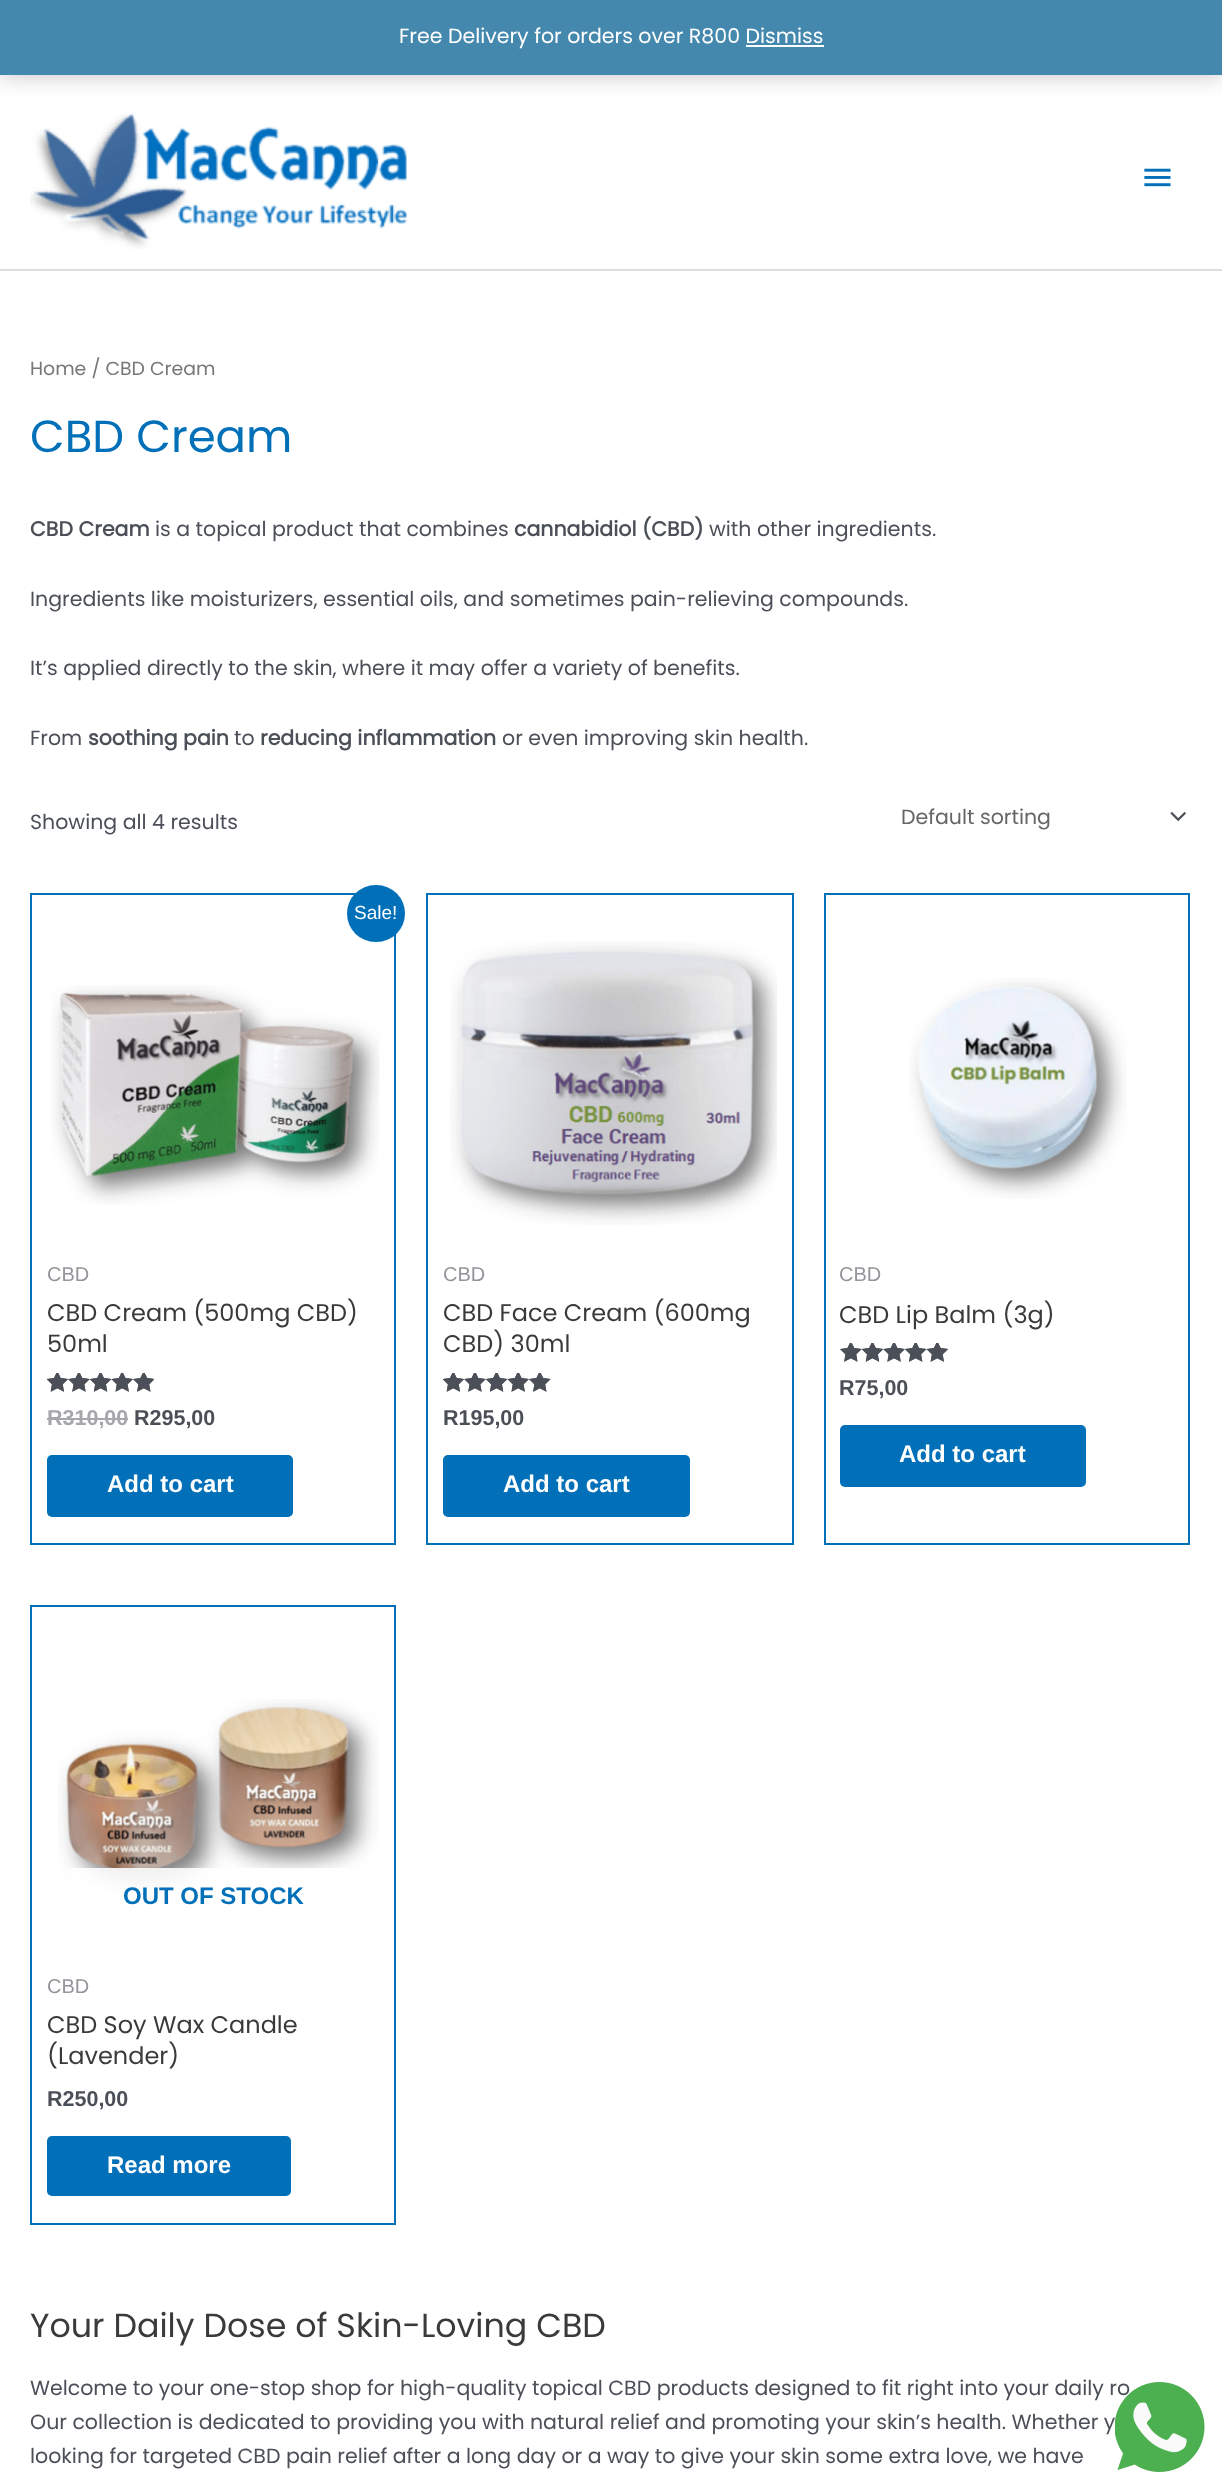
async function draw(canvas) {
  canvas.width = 1222
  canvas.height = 2489
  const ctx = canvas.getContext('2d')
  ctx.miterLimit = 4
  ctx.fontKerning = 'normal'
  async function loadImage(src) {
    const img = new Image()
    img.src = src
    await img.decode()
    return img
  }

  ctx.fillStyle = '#fff'
  ctx.fillRect(0, 0, 1222, 2489)
  ctx.fillStyle = '#00000033'
  ctx.filter = 'blur(10.5px)'
  ctx.beginPath()
  ctx.rect(0, 2, 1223, 75)
  ctx.fill()
  ctx.filter = 'none'
  ctx.fillStyle = '#4588ae'
  ctx.fillRect(0, 0, 1222, 75)
  ctx.font = '20.52px Poppins'
  ctx.fillStyle = '#fff'
  ctx.fillText('Free Delivery for orders over R800 Dismiss', 399, 43)
  ctx.fillRect(746, 45, 78, 2)
  ctx.fillStyle = '#ddd'
  ctx.fillRect(0, 269, 1222, 2)
  ctx.drawImage(await loadImage('image0.png'), 30, 113, 378, 136)
  ctx.drawImage(await loadImage('image1.png'), 1144, 168, 27, 19)
  ctx.font = '18.9px Poppins'
  ctx.fillStyle = '#777'
  ctx.fillText('Home / CBD Cream', 30, 375)
  ctx.font = '45px Poppins'
  ctx.fillStyle = '#0170b9'
  ctx.fillText('CBD Cream', 30, 452)
  ctx.font = 'bold 20.52px Poppins'
  ctx.fillStyle = '#4b4f58'
  ctx.fillText('CBD Cream', 30, 536)
  ctx.font = '20.52px Poppins'
  ctx.fillText('is a topical product that combines', 155, 536)
  ctx.font = 'bold 20.52px Poppins'
  ctx.fillText('cannabidiol (CBD)', 514, 536)
  ctx.font = '20.52px Poppins'
  ctx.fillText('with other ingredients.', 709, 536)
  ctx.fillText('Ingredients like moisturizers, essential oils, and sometimes pain-relieving compounds.', 30, 606)
  ctx.fillText('It’s applied directly to the skin, where it may offer a variety of benefits.', 30, 675)
  ctx.fillText('From', 30, 745)
  ctx.font = 'bold 20.52px Poppins'
  ctx.fillText('soothing pain', 88, 745)
  ctx.font = '20.52px Poppins'
  ctx.fillText('to', 234, 745)
  ctx.font = 'bold 20.52px Poppins'
  ctx.fillText('reducing inflammation', 260, 745)
  ctx.font = '20.52px Poppins'
  ctx.fillText('or even improving skin health.', 502, 745)
  ctx.fillText('Showing all 4 results', 30, 829)
  ctx.drawImage(await loadImage('image2.png'), 1170, 812, 16, 10)
  ctx.fillStyle = '#666'
  ctx.fillText('Default sorting', 901, 824)
  ctx.strokeStyle = '#0170b9'
  ctx.lineWidth = 2
  ctx.strokeRect(31, 894, 364, 650)
  ctx.fillStyle = '#0170b9'
  ctx.beginPath()
  ctx.roundRect(347, 885, 58, 57, 28.5)
  ctx.fill()
  ctx.font = '19px Liberation Sans'
  ctx.fillStyle = '#fff'
  ctx.fillText('Sale!', 354, 919)
  ctx.drawImage(await loadImage('image3.png'), 51, 985, 329, 220)
  ctx.font = '20px Liberation Sans'
  ctx.fillStyle = '#93959b'
  ctx.fillText('CBD', 47, 1281)
  ctx.font = '24px Poppins'
  ctx.fillStyle = '#3a3a3a'
  ctx.fillText('CBD Cream (500mg CBD)', 47, 1321)
  ctx.fillText('50ml', 47, 1352)
  ctx.drawImage(await loadImage('image4.png'), 47, 1373, 108, 19)
  ctx.drawImage(await loadImage('image5.png'), 47, 1373, 106, 19)
  ctx.font = 'bold 21.5px Liberation Sans'
  ctx.fillStyle = '#a5a7ac'
  ctx.fillText('R310,00', 47, 1425)
  ctx.fillRect(47, 1418, 81, 2)
  ctx.fillStyle = '#4b4f58'
  ctx.fillText('R295,00', 134, 1425)
  ctx.fillStyle = '#0170b9'
  ctx.beginPath()
  ctx.roundRect(47, 1455, 246, 62, 5)
  ctx.fill()
  ctx.font = 'bold 24px Liberation Sans'
  ctx.fillStyle = '#fff'
  ctx.fillText('Add to cart', 107, 1492)
  ctx.strokeRect(427, 894, 366, 650)
  ctx.drawImage(await loadImage('image6.png'), 450, 941, 327, 284)
  ctx.font = '20px Liberation Sans'
  ctx.fillStyle = '#93959b'
  ctx.fillText('CBD', 443, 1281)
  ctx.font = '24px Poppins'
  ctx.fillStyle = '#3a3a3a'
  ctx.fillText('CBD Face Cream (600mg', 443, 1321)
  ctx.fillText('CBD) 30ml', 443, 1352)
  ctx.drawImage(await loadImage('image4.png'), 443, 1373, 108, 19)
  ctx.drawImage(await loadImage('image7.png'), 443, 1373, 108, 19)
  ctx.font = 'bold 21.5px Liberation Sans'
  ctx.fillStyle = '#4b4f58'
  ctx.fillText('R195,00', 443, 1425)
  ctx.fillStyle = '#0170b9'
  ctx.beginPath()
  ctx.roundRect(443, 1455, 247, 62, 5)
  ctx.fill()
  ctx.font = 'bold 24px Liberation Sans'
  ctx.fillStyle = '#fff'
  ctx.fillText('Add to cart', 503, 1492)
  ctx.strokeRect(825, 894, 364, 650)
  ctx.drawImage(await loadImage('image8.png'), 909, 978, 218, 221)
  ctx.font = '20px Liberation Sans'
  ctx.fillStyle = '#93959b'
  ctx.fillText('CBD', 839, 1281)
  ctx.font = '24px Poppins'
  ctx.fillStyle = '#3a3a3a'
  ctx.fillText('CBD Lip Balm (3g)', 839, 1323)
  ctx.drawImage(await loadImage('image9.png'), 840, 1343, 108, 19)
  ctx.drawImage(await loadImage('image10.png'), 840, 1343, 108, 19)
  ctx.font = 'bold 21.5px Liberation Sans'
  ctx.fillStyle = '#4b4f58'
  ctx.fillText('R75,00', 839, 1395)
  ctx.fillStyle = '#0170b9'
  ctx.beginPath()
  ctx.roundRect(840, 1425, 246, 62, 5)
  ctx.fill()
  ctx.font = 'bold 24px Liberation Sans'
  ctx.fillStyle = '#fff'
  ctx.fillText('Add to cart', 899, 1462)
  ctx.strokeRect(31, 1606, 364, 618)
  ctx.drawImage(await loadImage('image11.png'), 58, 1699, 321, 202)
  ctx.fillStyle = '#ffffffe0'
  ctx.fillRect(71, 1868, 278, 33)
  ctx.fillStyle = '#0170b9'
  ctx.fillText('OUT OF STOCK', 123, 1904)
  ctx.font = '20px Liberation Sans'
  ctx.fillStyle = '#93959b'
  ctx.fillText('CBD', 47, 1993)
  ctx.font = '24px Poppins'
  ctx.fillStyle = '#3a3a3a'
  ctx.fillText('CBD Soy Wax Candle', 47, 2033)
  ctx.fillText('(Lavender)', 47, 2064)
  ctx.font = 'bold 21.5px Liberation Sans'
  ctx.fillStyle = '#4b4f58'
  ctx.fillText('R250,00', 47, 2106)
  ctx.fillStyle = '#0170b9'
  ctx.beginPath()
  ctx.roundRect(47, 2136, 244, 60, 5)
  ctx.fill()
  ctx.font = 'bold 24px Liberation Sans'
  ctx.fillStyle = '#fff'
  ctx.fillText('Read more', 107, 2173)
  ctx.font = '33.3px Poppins'
  ctx.fillStyle = '#3a3a3a'
  ctx.fillText('Your Daily Dose of Skin-Loving CBD', 30, 2337)
  ctx.font = '20.52px Poppins'
  ctx.fillStyle = '#4b4f58'
  ctx.fillText('Welcome to your one-stop shop for high-quality topical CBD products designed to fit right into your daily ro', 30, 2395)
  ctx.fillText('Our collection is dedicated to providing you with natural relief and promoting your skin’s health. Whether y', 30, 2429)
  ctx.fillText('looking for targeted CBD pain relief after a long day or a way to give your skin some extra love, we have', 30, 2463)
  ctx.drawImage(await loadImage('image12.png'), 1115, 2382, 90, 90)
}

draw(document.querySelector('canvas'))
